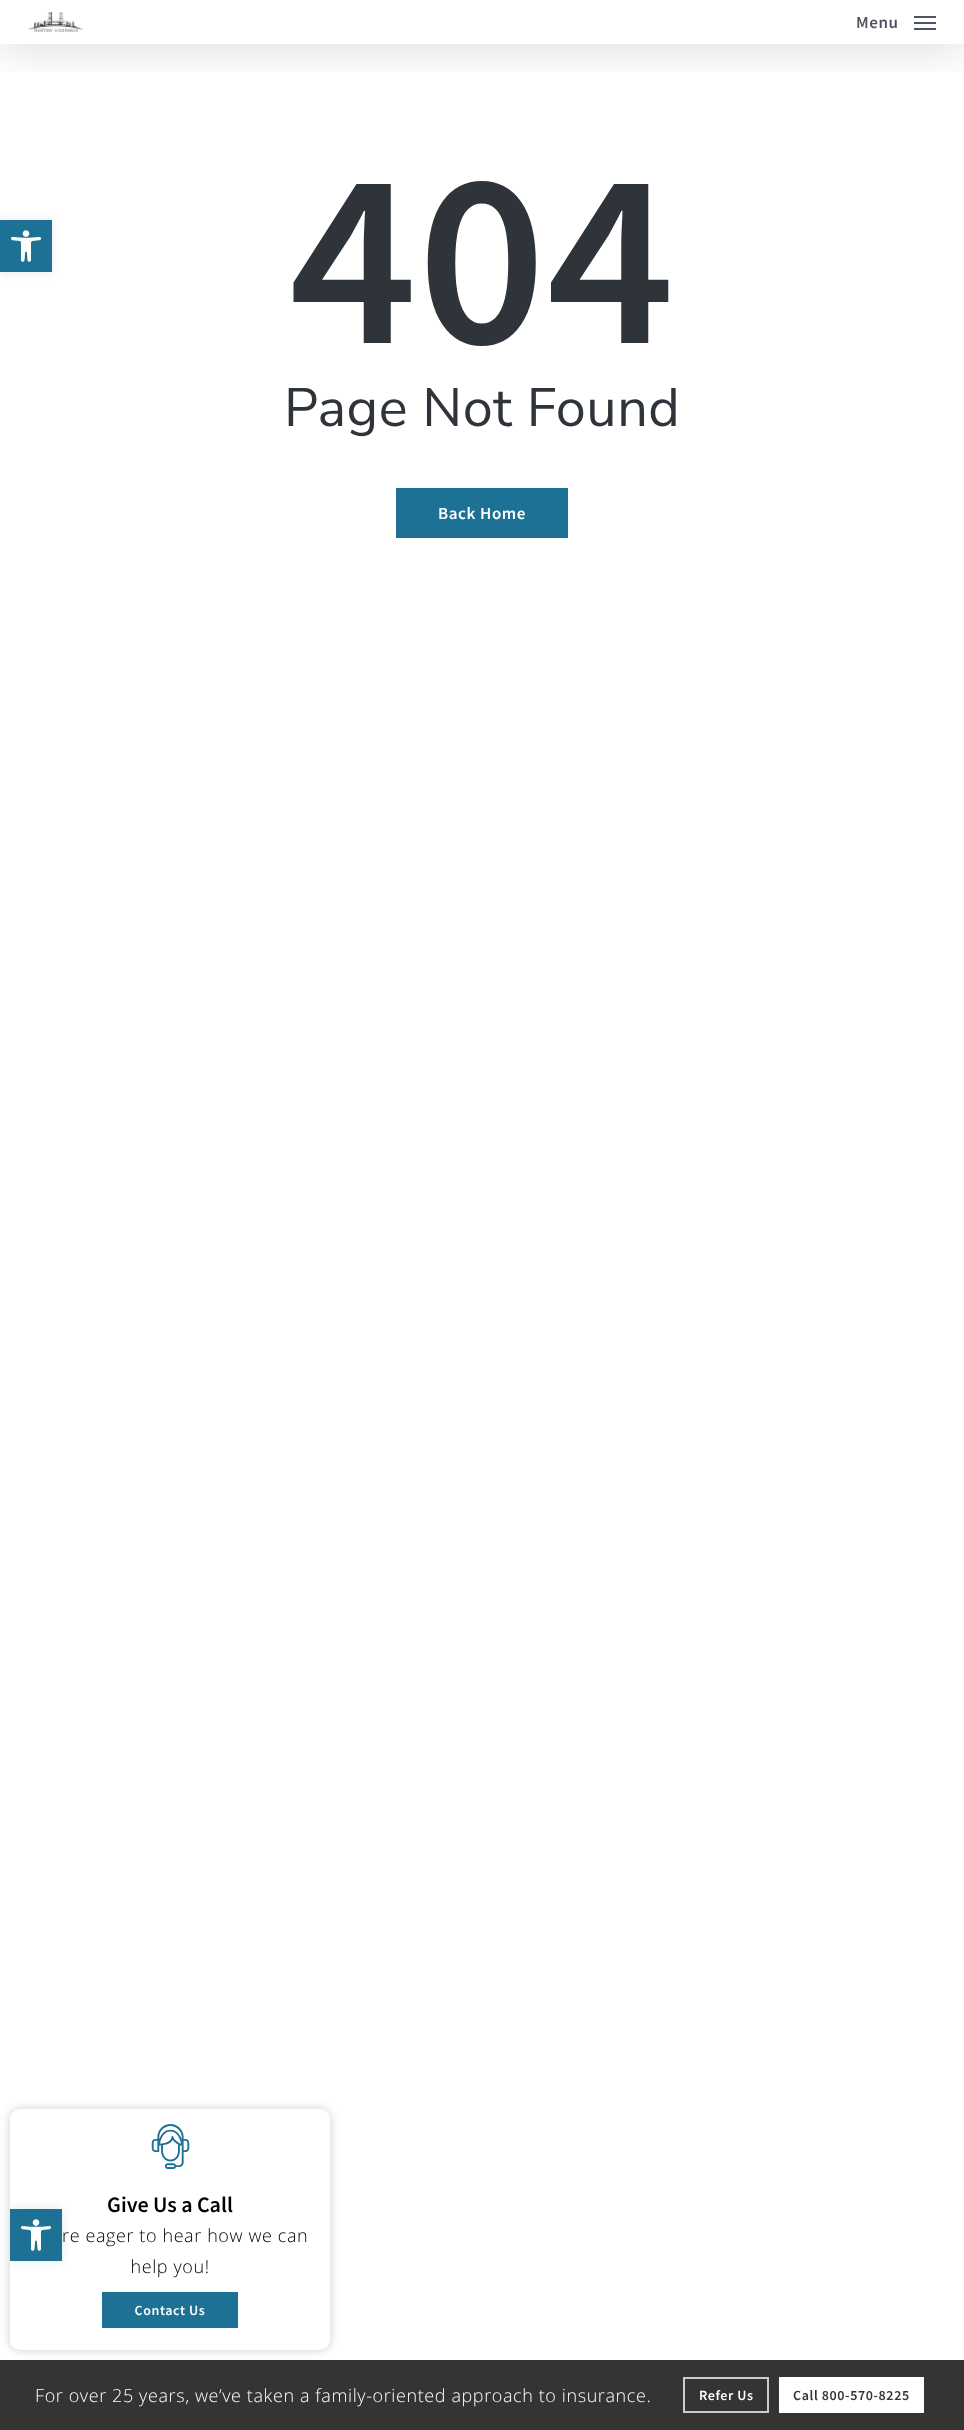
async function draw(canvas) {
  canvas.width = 964
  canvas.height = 2430
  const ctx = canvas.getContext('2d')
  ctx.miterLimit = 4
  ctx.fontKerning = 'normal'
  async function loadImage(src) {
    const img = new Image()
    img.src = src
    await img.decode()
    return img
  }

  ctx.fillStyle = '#fff'
  ctx.fillRect(0, 0, 964, 2430)
  ctx.save()
  ctx.beginPath()
  ctx.rect(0, 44, 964, 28)
  ctx.clip()
  ctx.fillStyle = '#00000026'
  ctx.filter = 'blur(22.5px)'
  ctx.beginPath()
  ctx.rect(0, 3, 964, 44)
  ctx.fill()
  ctx.filter = 'none'
  ctx.restore()
  ctx.drawImage(await loadImage('image0.png'), 28, 12, 55, 20)
  ctx.letterSpacing = '0.6px'
  ctx.font = '600 17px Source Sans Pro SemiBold'
  ctx.fillStyle = '#4e5561'
  ctx.fillText('Menu', 856, 28)
  ctx.fillRect(914, 16, 22, 2)
  ctx.fillRect(914, 28, 22, 2)
  ctx.fillRect(914, 22, 22, 2)
  ctx.fillStyle = '#0000001a'
  ctx.filter = 'blur(5px)'
  ctx.beginPath()
  ctx.rect(0, 220, 52, 52)
  ctx.fill()
  ctx.filter = 'none'
  ctx.fillStyle = '#1c7194'
  ctx.fillRect(0, 220, 52, 52)
  ctx.drawImage(await loadImage('image1.png'), 11, 230, 30, 32)
  ctx.letterSpacing = '0.5px'
  ctx.font = '600 250px Source Sans Pro SemiBold'
  ctx.fillStyle = '#2e343a'
  ctx.fillText('404', 289, 343)
  ctx.font = '54px Nunito Sans'
  ctx.fillText('Page Not Found', 284, 426)
  ctx.fillStyle = '#1c7194'
  ctx.fillRect(396, 488, 172, 50)
  ctx.letterSpacing = '0.6px'
  ctx.font = '600 17px Source Sans Pro SemiBold'
  ctx.fillStyle = '#fff'
  ctx.fillText('Back Home', 438, 519)
  ctx.fillStyle = '#343433'
  ctx.fillRect(0, 2360, 964, 70)
  ctx.fillStyle = '#00000033'
  ctx.filter = 'blur(5px)'
  ctx.beginPath()
  ctx.roundRect(10, 2109, 320, 241, 10)
  ctx.fill()
  ctx.filter = 'none'
  ctx.fillStyle = '#fff'
  ctx.beginPath()
  ctx.roundRect(10, 2109, 320, 241, 10)
  ctx.fill()
  ctx.drawImage(await loadImage('image2.png'), 10, 2124, 297, 204)
  ctx.font = '300 18px Open Sans'
  ctx.fillText('For over 25 years, we’ve taken a family-oriented approach to insurance.', 35, 2402)
  ctx.strokeStyle = '#ccc'
  ctx.lineWidth = 2
  ctx.strokeRect(684, 2378, 84, 34)
  ctx.font = '600 14px Source Sans Pro SemiBold'
  ctx.fillText('Refer Us', 699, 2400)
  ctx.fillRect(779, 2377, 145, 36)
  ctx.fillStyle = '#343433'
  ctx.fillText('Call 800-570-8225', 793, 2400)
}

draw(document.querySelector('canvas'))
